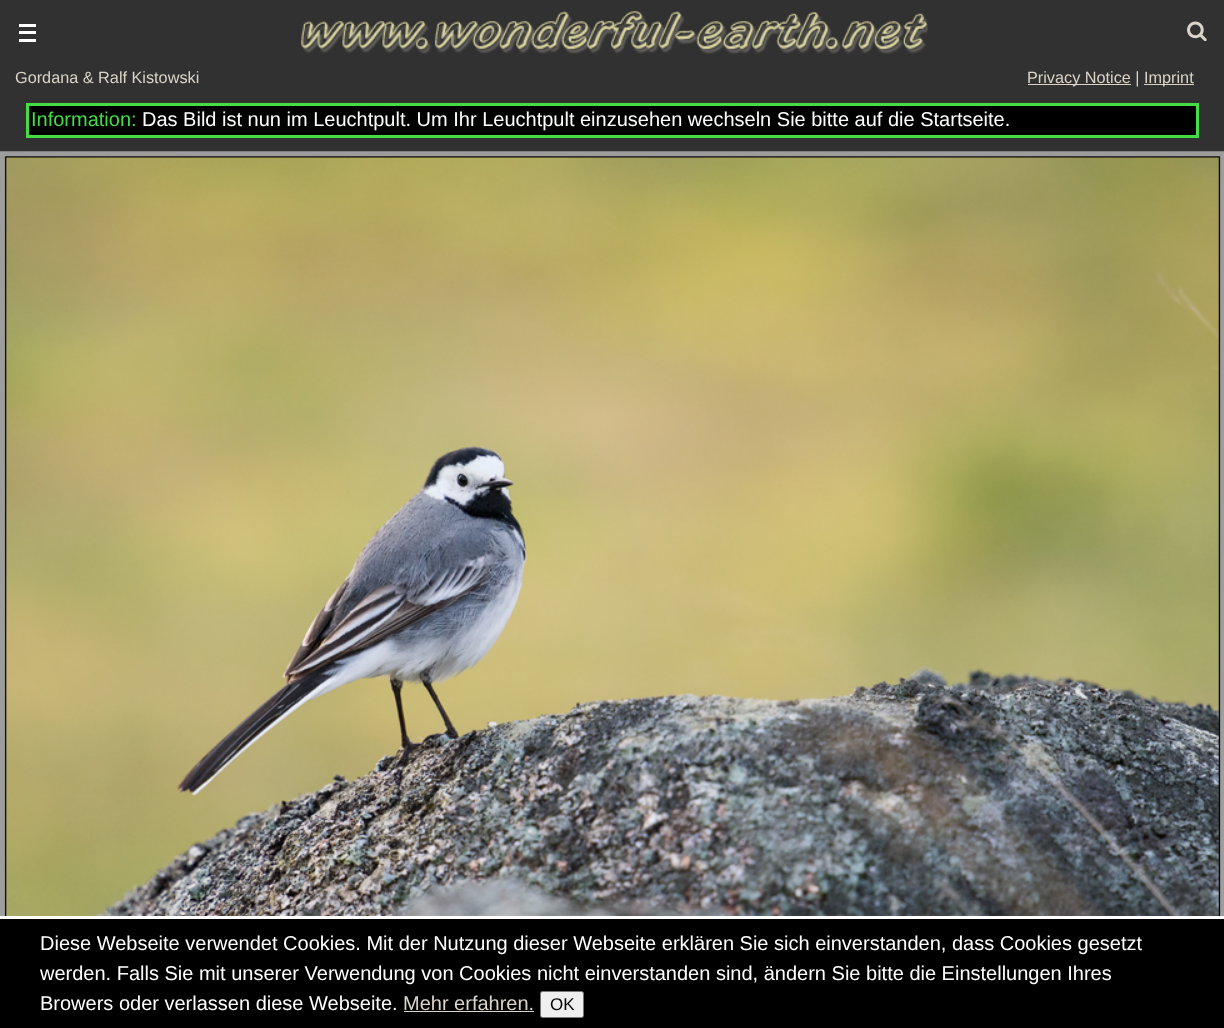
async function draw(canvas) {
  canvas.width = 1224
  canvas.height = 1028
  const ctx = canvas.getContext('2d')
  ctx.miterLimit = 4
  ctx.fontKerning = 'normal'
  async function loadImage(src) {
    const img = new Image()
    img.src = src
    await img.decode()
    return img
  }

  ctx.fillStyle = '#313131'
  ctx.fillRect(0, 0, 1224, 1028)
  ctx.fillStyle = '#fff'
  ctx.fillRect(19, 24, 17, 3)
  ctx.fillRect(19, 31, 17, 3)
  ctx.fillRect(19, 39, 17, 3)
  ctx.drawImage(await loadImage('image0.png'), 301, 11, 627, 43)
  ctx.drawImage(await loadImage('image1.png'), 1187, 21, 20, 20)
  ctx.font = '16.25px Liberation Sans'
  ctx.fillStyle = '#dbd4c7'
  ctx.fillText('Gordana & Ralf Kistowski', 15, 83)
  ctx.fillRect(1028, 84, 103, 1)
  ctx.fillText('Privacy Notice |', 1027, 83)
  ctx.fillRect(1144, 84, 50, 1)
  ctx.fillText('Imprint', 1144, 83)
  ctx.fillStyle = '#000'
  ctx.beginPath()
  ctx.rect(27.5, 104.5, 1170, 32)
  ctx.fill()
  ctx.strokeStyle = '#4d4'
  ctx.lineWidth = 3
  ctx.stroke()
  ctx.font = '20px Liberation Sans'
  ctx.fillStyle = '#4d4'
  ctx.fillText('Information:', 31, 126)
  ctx.fillStyle = '#fff'
  ctx.fillText('Das Bild ist nun im Leuchtpult. Um Ihr Leuchtpult einzusehen wechseln Sie bitte auf die Startseite.', 142, 126)
  ctx.drawImage(await loadImage('image2.png'), 0, 151, 1224, 765)
  ctx.fillStyle = '#000'
  ctx.fillRect(0, 919, 1224, 109)
  ctx.fillStyle = '#fff'
  ctx.fillRect(0, 916, 1224, 3)
  ctx.fillText('Diese Webseite verwendet Cookies. Mit der Nutzung dieser Webseite erklären Sie sich einverstanden, dass Cookies gesetzt', 40, 950)
  ctx.fillText('werden. Falls Sie mit unserer Verwendung von Cookies nicht einverstanden sind, ändern Sie bitte die Einstellungen Ihres', 40, 980)
  ctx.fillText('Browers oder verlassen diese Webseite.', 40, 1010)
  ctx.fillStyle = '#dbd4c7'
  ctx.fillText('Mehr erfahren.', 403, 1010)
  ctx.fillRect(404, 1011, 130, 1)
  ctx.fillStyle = '#efefef'
  ctx.beginPath()
  ctx.roundRect(540.5, 991.5, 43, 26, 2)
  ctx.fill()
  ctx.strokeStyle = '#767676'
  ctx.lineWidth = 1
  ctx.stroke()
  ctx.font = '17px Liberation Sans'
  ctx.fillStyle = '#000'
  ctx.fillText('OK', 550, 1010)
}

draw(document.querySelector('canvas'))
